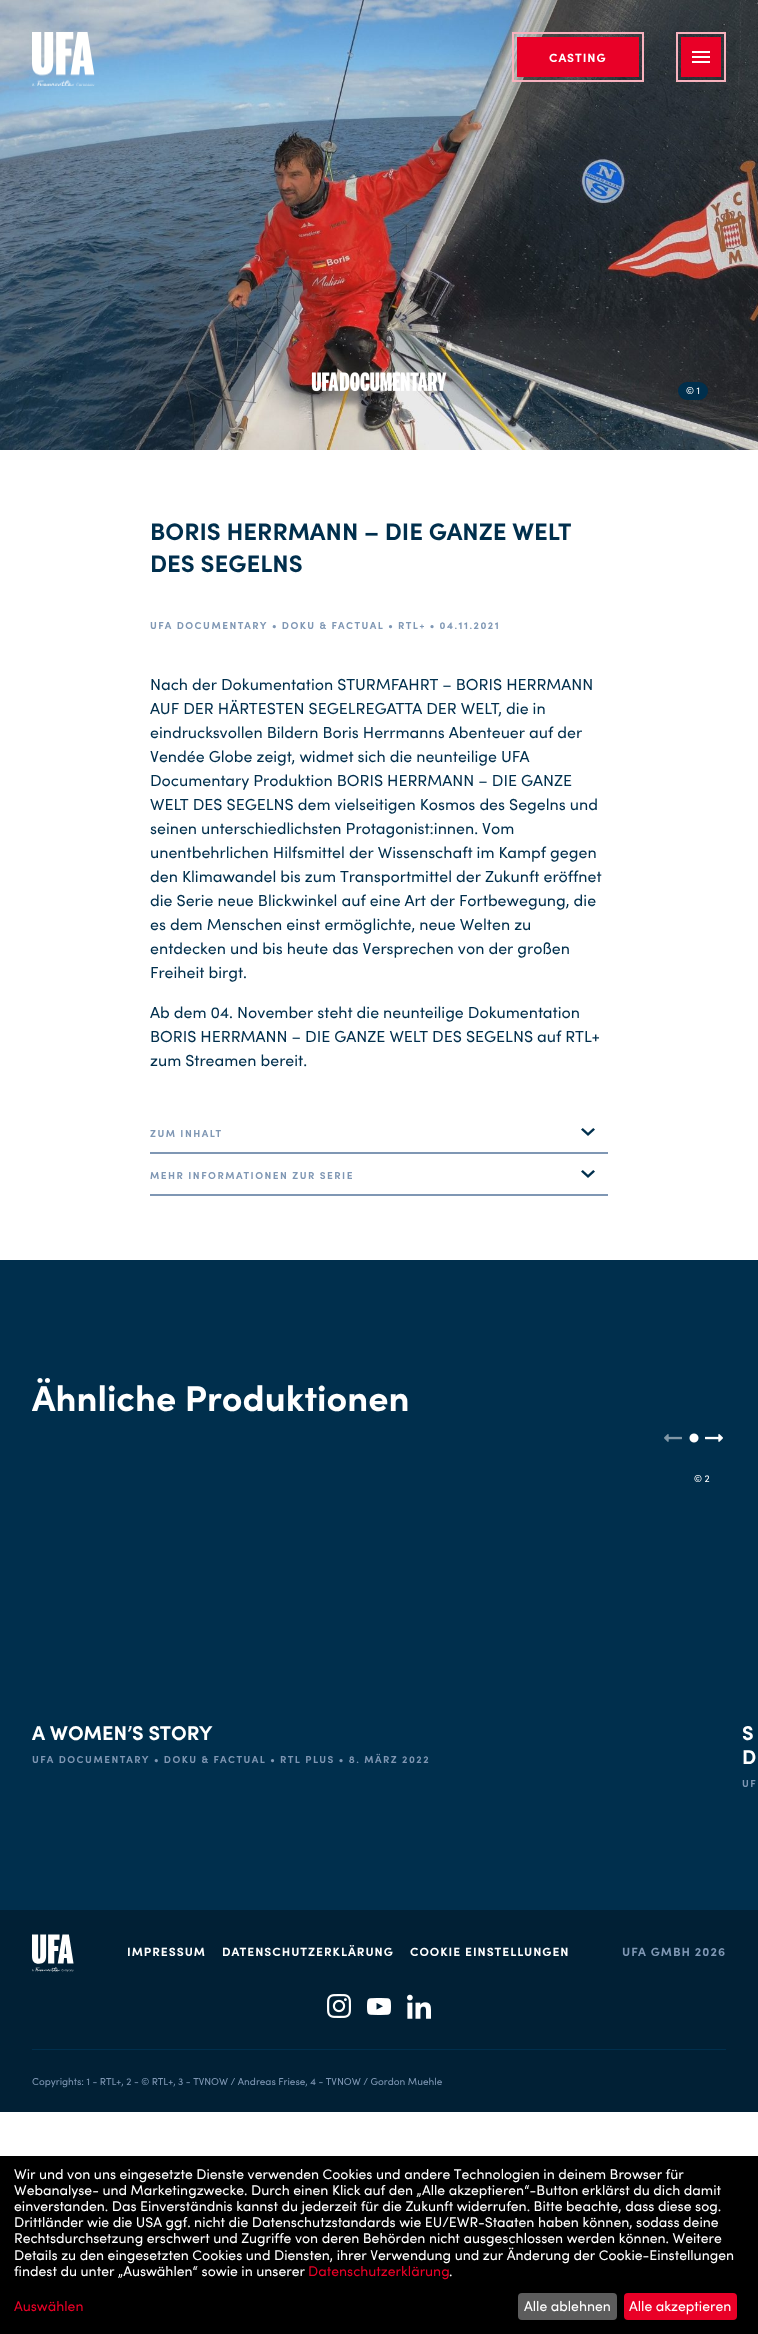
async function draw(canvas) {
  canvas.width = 758
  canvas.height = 2334
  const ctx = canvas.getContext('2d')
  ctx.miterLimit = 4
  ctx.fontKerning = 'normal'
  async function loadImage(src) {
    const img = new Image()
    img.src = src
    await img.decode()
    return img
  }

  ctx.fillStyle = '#fff'
  ctx.fillRect(0, 0, 758, 2334)
  ctx.drawImage(await loadImage('image3.png'), 0, 0, 758, 450)
  ctx.drawImage(await loadImage('image0.png'), 32, 32, 63, 54)
  ctx.strokeStyle = '#f8b2be'
  ctx.lineWidth = 2
  ctx.strokeRect(513, 33, 130, 48)
  ctx.fillStyle = '#e90027'
  ctx.fillRect(517, 37, 122, 40)
  ctx.letterSpacing = '1px'
  ctx.font = 'bold 12px Sofia'
  ctx.fillStyle = '#fff'
  ctx.fillText('CASTING', 549, 62)
  ctx.strokeRect(677, 33, 48, 48)
  ctx.fillStyle = '#e90027'
  ctx.fillRect(681, 37, 40, 40)
  ctx.drawImage(await loadImage('image1.png'), 692, 51, 18, 12)
  ctx.drawImage(await loadImage('image2.png'), 311, 372, 136, 20)
  ctx.fillStyle = '#002f4d'
  ctx.beginPath()
  ctx.roundRect(678, 382, 30, 18, 9)
  ctx.fill()
  ctx.letterSpacing = '0px'
  ctx.font = '10px Sofia'
  ctx.fillStyle = '#fff'
  ctx.fillText('© 1', 686, 394)
  ctx.font = 'bold 24px Sofia'
  ctx.fillStyle = '#002f4d'
  ctx.fillText('BORIS HERRMANN – DIE GANZE WELT', 150, 540)
  ctx.fillText('DES SEGELNS', 150, 572)
  ctx.letterSpacing = '1.5px'
  ctx.font = 'bold 10px Sofia'
  ctx.fillStyle = '#7f97b4'
  ctx.fillText('UFA DOCUMENTARY • DOKU & FACTUAL • RTL+ • 04.11.2021', 150, 629)
  ctx.letterSpacing = '0px'
  ctx.font = '16px Sofia'
  ctx.fillStyle = '#002f4d'
  ctx.fillText('Nach der Dokumentation STURMFAHRT – BORIS HERRMANN', 150, 690)
  ctx.fillText('AUF DER HÄRTESTEN SEGELREGATTA DER WELT, die in', 150, 714)
  ctx.fillText('eindrucksvollen Bildern Boris Herrmanns Abenteuer auf der', 150, 738)
  ctx.fillText('Vendée Globe zeigt, widmet sich die neunteilige UFA', 150, 762)
  ctx.fillText('Documentary Produktion BORIS HERRMANN – DIE GANZE', 150, 786)
  ctx.fillText('WELT DES SEGELNS dem vielseitigen Kosmos des Segelns und', 150, 810)
  ctx.fillText('seinen unterschiedlichsten Protagonist:innen. Vom', 150, 834)
  ctx.fillText('unentbehrlichen Hilfsmittel der Wissenschaft im Kampf gegen', 150, 858)
  ctx.fillText('den Klimawandel bis zum Transportmittel der Zukunft eröffnet', 150, 882)
  ctx.fillText('die Serie neue Blickwinkel auf eine Art der Fortbewegung, die', 150, 906)
  ctx.fillText('es dem Menschen einst ermöglichte, neue Welten zu', 150, 930)
  ctx.fillText('entdecken und bis heute das Versprechen von der großen', 150, 954)
  ctx.fillText('Freiheit birgt.', 150, 978)
  ctx.fillText('Ab dem 04. November steht die neunteilige Dokumentation', 150, 1018)
  ctx.fillText('BORIS HERRMANN – DIE GANZE WELT DES SEGELNS auf RTL+', 150, 1042)
  ctx.fillText('zum Streamen bereit.', 150, 1066)
  ctx.fillStyle = '#7f97b4'
  ctx.fillRect(150, 1152, 458, 2)
  ctx.letterSpacing = '1.5px'
  ctx.font = 'bold 10px Sofia'
  ctx.fillText('ZUM INHALT', 150, 1137)
  ctx.drawImage(await loadImage('image4.png'), 581, 1128, 14, 8)
  ctx.fillRect(150, 1194, 458, 2)
  ctx.fillText('MEHR INFORMATIONEN ZUR SERIE', 150, 1179)
  ctx.drawImage(await loadImage('image4.png'), 581, 1170, 14, 8)
  ctx.fillStyle = '#002f4d'
  ctx.fillRect(0, 1260, 758, 650)
  ctx.letterSpacing = '0px'
  ctx.font = 'bold 36px Sofia'
  ctx.fillStyle = '#fff'
  ctx.fillText('Ähnliche Produktionen', 32, 1411)
  ctx.drawImage(await loadImage('image5.png'), 664, 1433, 59, 10)
  ctx.font = '10px Sofia'
  ctx.fillText('© 2', 694, 1482)
  ctx.font = 'bold 20px Sofia'
  ctx.fillText('A WOMEN’S STORY', 32, 1740)
  ctx.letterSpacing = '1.5px'
  ctx.font = 'bold 10px Sofia'
  ctx.fillStyle = '#7f97b4'
  ctx.fillText('UFA DOCUMENTARY • DOKU & FACTUAL • RTL PLUS • 8. MÄRZ 2022', 32, 1763)
  ctx.letterSpacing = '0px'
  ctx.font = 'bold 20px Sofia'
  ctx.fillStyle = '#fff'
  ctx.fillText('S', 742, 1740)
  ctx.fillText('D', 742, 1764)
  ctx.letterSpacing = '1.5px'
  ctx.font = 'bold 10px Sofia'
  ctx.fillStyle = '#7f97b4'
  ctx.fillText('UF', 742, 1787)
  ctx.fillStyle = '#012035'
  ctx.fillRect(0, 1910, 758, 202)
  ctx.drawImage(await loadImage('image6.png'), 32, 1934, 42, 38)
  ctx.letterSpacing = '1px'
  ctx.font = 'bold 12px Sofia'
  ctx.fillStyle = '#fff'
  ctx.fillText('IMPRESSUM', 127, 1956)
  ctx.fillText('DATENSCHUTZERKLÄRUNG', 222, 1956)
  ctx.fillText('COOKIE EINSTELLUNGEN', 410, 1956)
  ctx.fillStyle = '#7f97b4'
  ctx.fillText('UFA GMBH 2026', 622, 1956)
  ctx.drawImage(await loadImage('image7.png'), 327, 1994, 24, 24)
  ctx.drawImage(await loadImage('image8.png'), 367, 1998, 24, 17)
  ctx.drawImage(await loadImage('image9.png'), 407, 1994, 24, 25)
  ctx.fillStyle = '#002f4d'
  ctx.fillRect(32, 2049, 694, 1)
  ctx.letterSpacing = '0px'
  ctx.font = '10px Sofia'
  ctx.fillStyle = '#7f97b4'
  ctx.fillText('Copyrights: 1 - RTL+, 2 - © RTL+, 3 - TVNOW / Andreas Friese, 4 - TVNOW / Gordon Muehle', 32, 2085)
  ctx.fillStyle = '#000'
  ctx.fillRect(0, 2156, 758, 178)
  ctx.font = '14px Sofia'
  ctx.fillStyle = '#fff'
  ctx.fillText('Wir und von uns eingesetzte Dienste verwenden Cookies und andere Technologien in deinem Browser für', 14, 2179)
  ctx.fillText('Webanalyse- und Marketingzwecke. Durch einen Klick auf den „Alle akzeptieren“-Button erklärst du dich damit', 14, 2195)
  ctx.fillText('einverstanden. Das Einverständnis kannst du jederzeit für die Zukunft widerrufen. Bitte beachte, dass diese sog.', 14, 2211)
  ctx.fillText('Drittländer wie die USA ggf. nicht die Datenschutzstandards wie EU/EWR-Staaten haben können, sodass deine', 14, 2227)
  ctx.fillText('Rechtsdurchsetzung erschwert und Zugriffe von deren Behörden nicht ausgeschlossen werden können. Weitere', 14, 2243)
  ctx.fillText('Details zu den eingesetzten Cookies und Diensten, ihrer Verwendung und zur Änderung der Cookie-Einstellungen', 14, 2260)
  ctx.fillText('findest du unter „Auswählen“ sowie in unserer', 14, 2276)
  ctx.fillStyle = '#e90027'
  ctx.fillText('Datenschutzerklärung', 308, 2276)
  ctx.fillStyle = '#fff'
  ctx.fillText('.', 449, 2276)
  ctx.fillStyle = '#e90027'
  ctx.fillText('Auswählen', 14, 2311)
  ctx.fillStyle = '#5c5c5c'
  ctx.beginPath()
  ctx.roundRect(518, 2293, 99, 27, 4)
  ctx.fill()
  ctx.fillStyle = '#fff'
  ctx.fillText('Alle ablehnen', 524, 2311)
  ctx.fillStyle = '#e90027'
  ctx.beginPath()
  ctx.roundRect(624, 2293, 113, 27, 4)
  ctx.fill()
  ctx.fillStyle = '#fff'
  ctx.fillText('Alle akzeptieren', 629, 2311)
}

draw(document.querySelector('canvas'))
